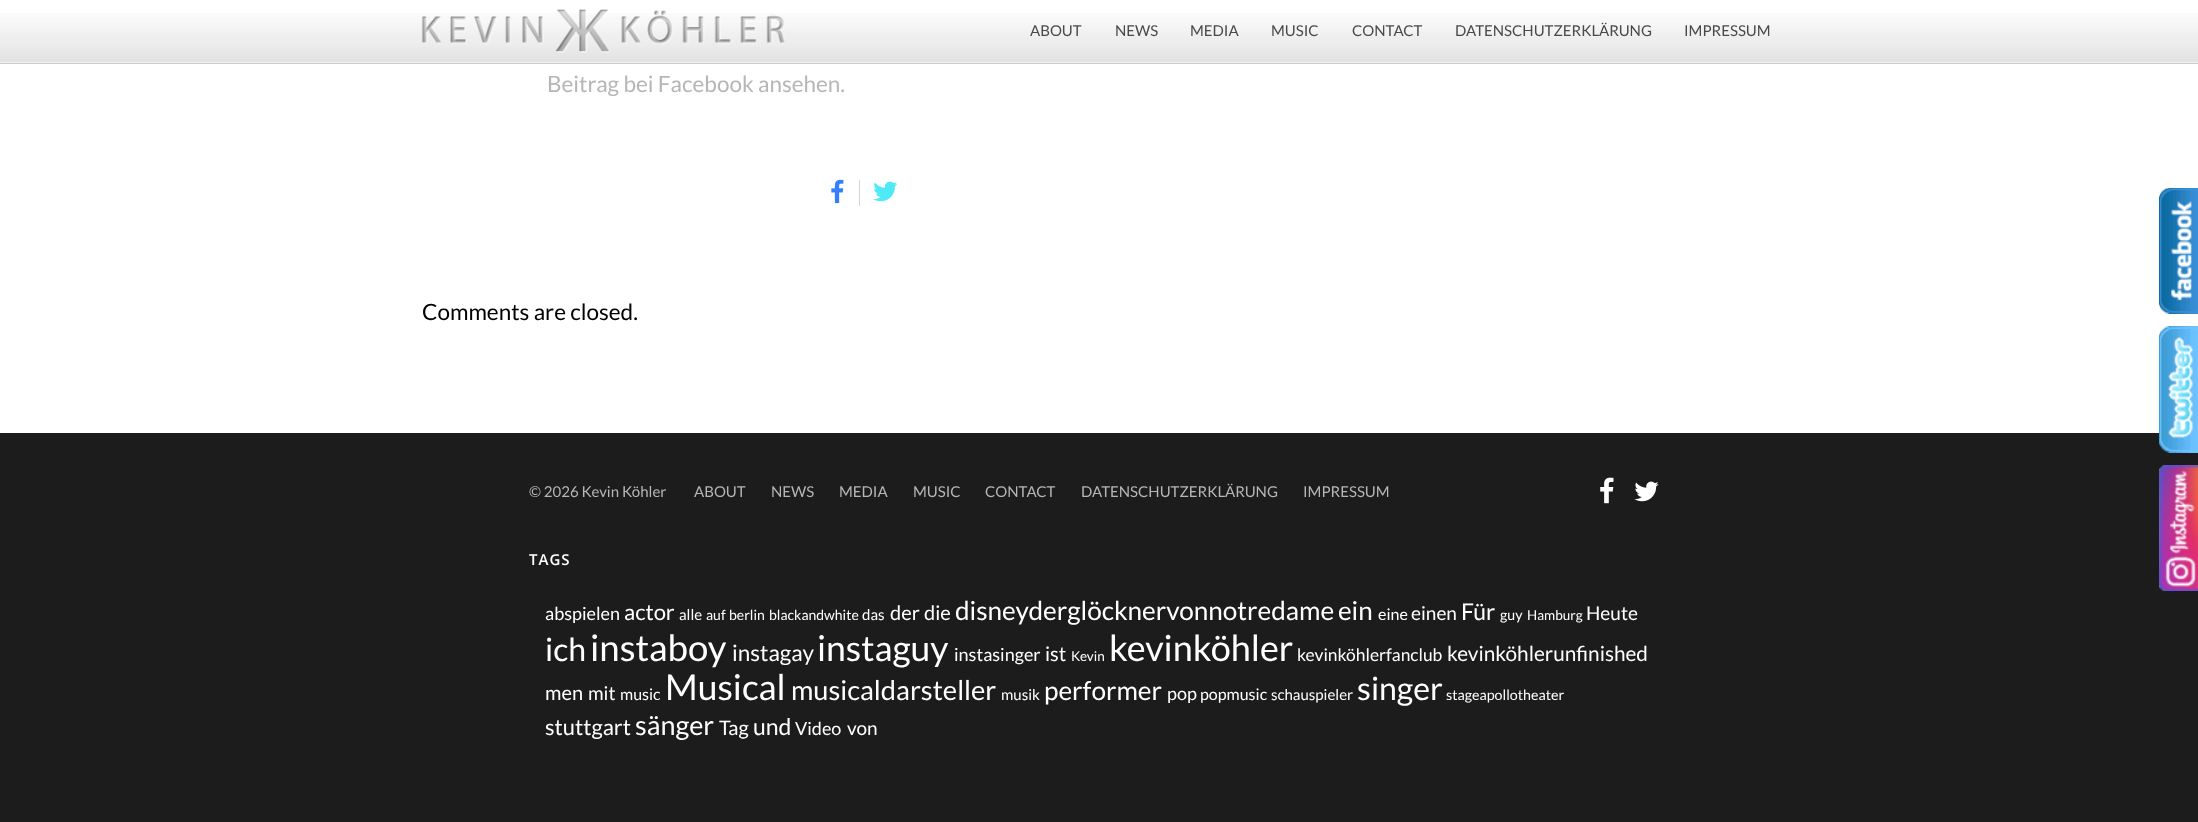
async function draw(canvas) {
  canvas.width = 2198
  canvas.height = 822
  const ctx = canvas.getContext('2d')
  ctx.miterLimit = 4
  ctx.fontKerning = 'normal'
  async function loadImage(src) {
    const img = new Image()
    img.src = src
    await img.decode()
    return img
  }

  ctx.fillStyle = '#fff'
  ctx.fillRect(0, 0, 2198, 822)
  ctx.fillStyle = '#ccc'
  ctx.beginPath()
  ctx.moveTo(0, 62)
  ctx.lineTo(0, 64)
  ctx.lineTo(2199, 64)
  ctx.lineTo(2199, 1)
  ctx.lineTo(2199, 62)
  ctx.closePath()
  ctx.fill()
  ctx.fillStyle = '#fff'
  ctx.fillRect(0, 62, 2198, 1)
  ctx.drawImage(await loadImage('image0.png'), 0, 13, 2198, 50)
  ctx.drawImage(await loadImage('image1.png'), 421, 9, 364, 44)
  ctx.font = '15px Lato'
  ctx.fillStyle = '#494949'
  ctx.fillText('ABOUT', 1030, 36)
  ctx.fillText('NEWS', 1115, 36)
  ctx.fillText('MEDIA', 1190, 36)
  ctx.fillText('MUSIC', 1271, 36)
  ctx.fillText('CONTACT', 1352, 36)
  ctx.fillText('DATENSCHUTZERKLÄRUNG', 1455, 36)
  ctx.fillText('IMPRESSUM', 1684, 36)
  ctx.font = '22.5px Lato'
  ctx.fillStyle = '#b6b6b6'
  ctx.fillText('Beitrag bei Facebook ansehen.', 547, 92)
  ctx.fillStyle = '#d4d4d4'
  ctx.fillRect(859, 180, 1, 26)
  ctx.drawImage(await loadImage('image2.png'), 831, 179, 13, 25)
  ctx.drawImage(await loadImage('image3.png'), 873, 181, 25, 21)
  ctx.fillStyle = '#000'
  ctx.fillText('Comments are closed.', 422, 320)
  ctx.fillStyle = '#1c1c1c'
  ctx.fillRect(0, 433, 2198, 389)
  ctx.font = '15px Lato'
  ctx.fillStyle = '#b6b6b6'
  ctx.fillText('© 2026 Kevin Köhler', 529, 497)
  ctx.fillText('ABOUT', 694, 497)
  ctx.fillText('NEWS', 771, 497)
  ctx.fillText('MEDIA', 839, 497)
  ctx.fillText('MUSIC', 913, 497)
  ctx.fillText('CONTACT', 985, 497)
  ctx.fillText('DATENSCHUTZERKLÄRUNG', 1081, 497)
  ctx.fillText('IMPRESSUM', 1303, 497)
  ctx.drawImage(await loadImage('image4.png'), 1600, 477, 14, 27)
  ctx.drawImage(await loadImage('image5.png'), 1634, 481, 25, 21)
  ctx.letterSpacing = '1px'
  ctx.font = '600 15px Open Sans'
  ctx.fillStyle = '#fff'
  ctx.fillText('TAGS', 529, 565)
  ctx.letterSpacing = '0px'
  ctx.font = '18px Lato'
  ctx.fillText('abspielen', 545, 620)
  ctx.font = '22px Lato'
  ctx.fillText('actor', 624, 620)
  ctx.font = '15px Lato'
  ctx.fillText('alle', 679, 620)
  ctx.font = '14px Lato'
  ctx.fillText('auf', 706, 620)
  ctx.fillText('berlin', 729, 620)
  ctx.fillText('blackandwhite', 769, 620)
  ctx.font = '15px Lato'
  ctx.fillText('das', 862, 620)
  ctx.font = '20px Lato'
  ctx.fillText('der', 890, 620)
  ctx.fillText('die', 924, 620)
  ctx.font = '26.1px Lato'
  ctx.fillText('disneyderglöcknervonnotredame', 955, 620)
  ctx.font = '26px Lato'
  ctx.fillText('ein', 1338, 620)
  ctx.font = '16px Lato'
  ctx.fillText('eine', 1378, 620)
  ctx.font = '19px Lato'
  ctx.fillText('einen', 1411, 620)
  ctx.font = '23px Lato'
  ctx.fillText('Für', 1461, 620)
  ctx.font = '14.25px Lato'
  ctx.fillText('guy', 1500, 620)
  ctx.font = '13.5px Lato'
  ctx.fillText('Hamburg', 1527, 620)
  ctx.font = '19px Lato'
  ctx.fillText('Heute', 1586, 620)
  ctx.font = '32px Lato'
  ctx.fillText('ich', 545, 661)
  ctx.font = '36.5px Lato'
  ctx.fillText('instaboy', 590, 661)
  ctx.font = '22.5px Lato'
  ctx.fillText('instagay', 732, 661)
  ctx.font = '35.5px Lato'
  ctx.fillText('instaguy', 817, 661)
  ctx.font = '18px Lato'
  ctx.fillText('instasinger', 954, 661)
  ctx.font = '20px Lato'
  ctx.fillText('ist', 1045, 661)
  ctx.font = '13.5px Lato'
  ctx.fillText('Kevin', 1071, 661)
  ctx.font = '36px Lato'
  ctx.fillText('kevinköhler', 1109, 661)
  ctx.font = '17.4px Lato'
  ctx.fillText('kevinköhlerfanclub', 1297, 661)
  ctx.font = '20.75px Lato'
  ctx.fillText('kevinköhlerunfinished', 1447, 661)
  ctx.font = '20px Lato'
  ctx.fillText('men', 545, 700)
  ctx.font = '19px Lato'
  ctx.fillText('mit', 588, 700)
  ctx.font = '16px Lato'
  ctx.fillText('music', 620, 700)
  ctx.font = '35.5px Lato'
  ctx.fillText('Musical', 665, 700)
  ctx.font = '27.25px Lato'
  ctx.fillText('musicaldarsteller', 791, 700)
  ctx.font = '15px Lato'
  ctx.fillText('musik', 1001, 700)
  ctx.font = '26.1px Lato'
  ctx.fillText('performer', 1044, 700)
  ctx.font = '18px Lato'
  ctx.fillText('pop', 1167, 700)
  ctx.font = '16px Lato'
  ctx.fillText('popmusic', 1200, 700)
  ctx.font = '15px Lato'
  ctx.fillText('schauspieler', 1271, 700)
  ctx.font = '32px Lato'
  ctx.fillText('singer', 1357, 700)
  ctx.font = '14.25px Lato'
  ctx.fillText('stageapollotheater', 1446, 700)
  ctx.font = '22px Lato'
  ctx.fillText('stuttgart', 545, 735)
  ctx.font = '27px Lato'
  ctx.fillText('sänger', 635, 735)
  ctx.font = '20px Lato'
  ctx.fillText('Tag', 719, 735)
  ctx.font = '23px Lato'
  ctx.fillText('und', 753, 735)
  ctx.font = '18px Lato'
  ctx.fillText('Video', 795, 735)
  ctx.font = '19px Lato'
  ctx.fillText('von', 847, 735)
  ctx.drawImage(await loadImage('image6.png'), 2159, 188, 39, 126)
  ctx.drawImage(await loadImage('image7.png'), 2159, 326, 39, 127)
  ctx.drawImage(await loadImage('image8.png'), 2159, 465, 39, 126)
}

draw(document.querySelector('canvas'))
